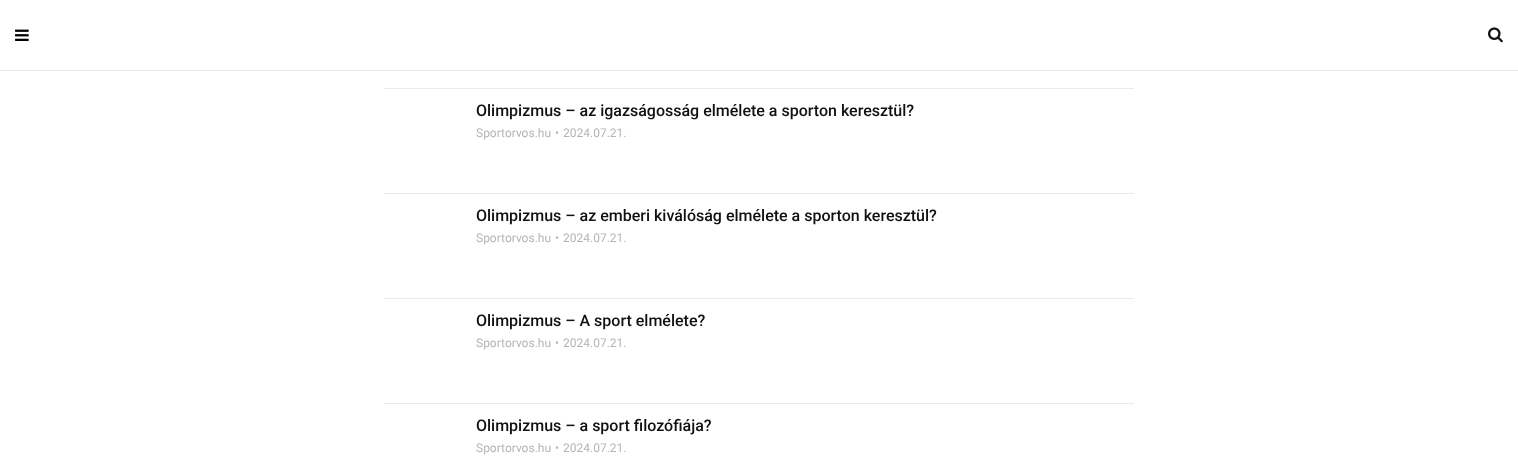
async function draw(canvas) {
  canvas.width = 1518
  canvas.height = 456
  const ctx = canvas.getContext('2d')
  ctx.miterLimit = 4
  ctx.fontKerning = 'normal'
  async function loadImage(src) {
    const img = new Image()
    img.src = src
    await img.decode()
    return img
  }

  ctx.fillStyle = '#fff'
  ctx.fillRect(0, 0, 1518, 456)
  ctx.fillStyle = '#eaeaea'
  ctx.fillRect(0, 70, 1518, 1)
  ctx.drawImage(await loadImage('image0.png'), 15, 29, 14, 12)
  ctx.drawImage(await loadImage('image1.png'), 1488, 27, 15, 16)
  ctx.fillRect(384, 88, 750, 1)
  ctx.fillRect(384, 193, 750, 1)
  ctx.font = '500 16px Roboto'
  ctx.fillStyle = '#111'
  ctx.fillText('Olimpizmus – az igazságosság elmélete a sporton keresztül?', 476, 116)
  ctx.font = '12px Roboto'
  ctx.fillStyle = '#b5b5b5'
  ctx.fillText('Sportorvos.hu', 476, 137)
  ctx.fillText('•', 555, 137)
  ctx.fillText('2024.07.21.', 563, 137)
  ctx.fillStyle = '#eaeaea'
  ctx.fillRect(384, 298, 750, 1)
  ctx.font = '500 16px Roboto'
  ctx.fillStyle = '#111'
  ctx.fillText('Olimpizmus – az emberi kiválóság elmélete a sporton keresztül?', 476, 221)
  ctx.font = '12px Roboto'
  ctx.fillStyle = '#b5b5b5'
  ctx.fillText('Sportorvos.hu', 476, 242)
  ctx.fillText('•', 555, 242)
  ctx.fillText('2024.07.21.', 563, 242)
  ctx.fillStyle = '#eaeaea'
  ctx.fillRect(384, 403, 750, 1)
  ctx.font = '500 16px Roboto'
  ctx.fillStyle = '#111'
  ctx.fillText('Olimpizmus – A sport elmélete?', 476, 326)
  ctx.font = '12px Roboto'
  ctx.fillStyle = '#b5b5b5'
  ctx.fillText('Sportorvos.hu', 476, 347)
  ctx.fillText('•', 555, 347)
  ctx.fillText('2024.07.21.', 563, 347)
  ctx.font = '500 16px Roboto'
  ctx.fillStyle = '#111'
  ctx.fillText('Olimpizmus – a sport filozófiája?', 476, 431)
  ctx.font = '12px Roboto'
  ctx.fillStyle = '#b5b5b5'
  ctx.fillText('Sportorvos.hu', 476, 452)
  ctx.fillText('•', 555, 452)
  ctx.fillText('2024.07.21.', 563, 452)
}

draw(document.querySelector('canvas'))
